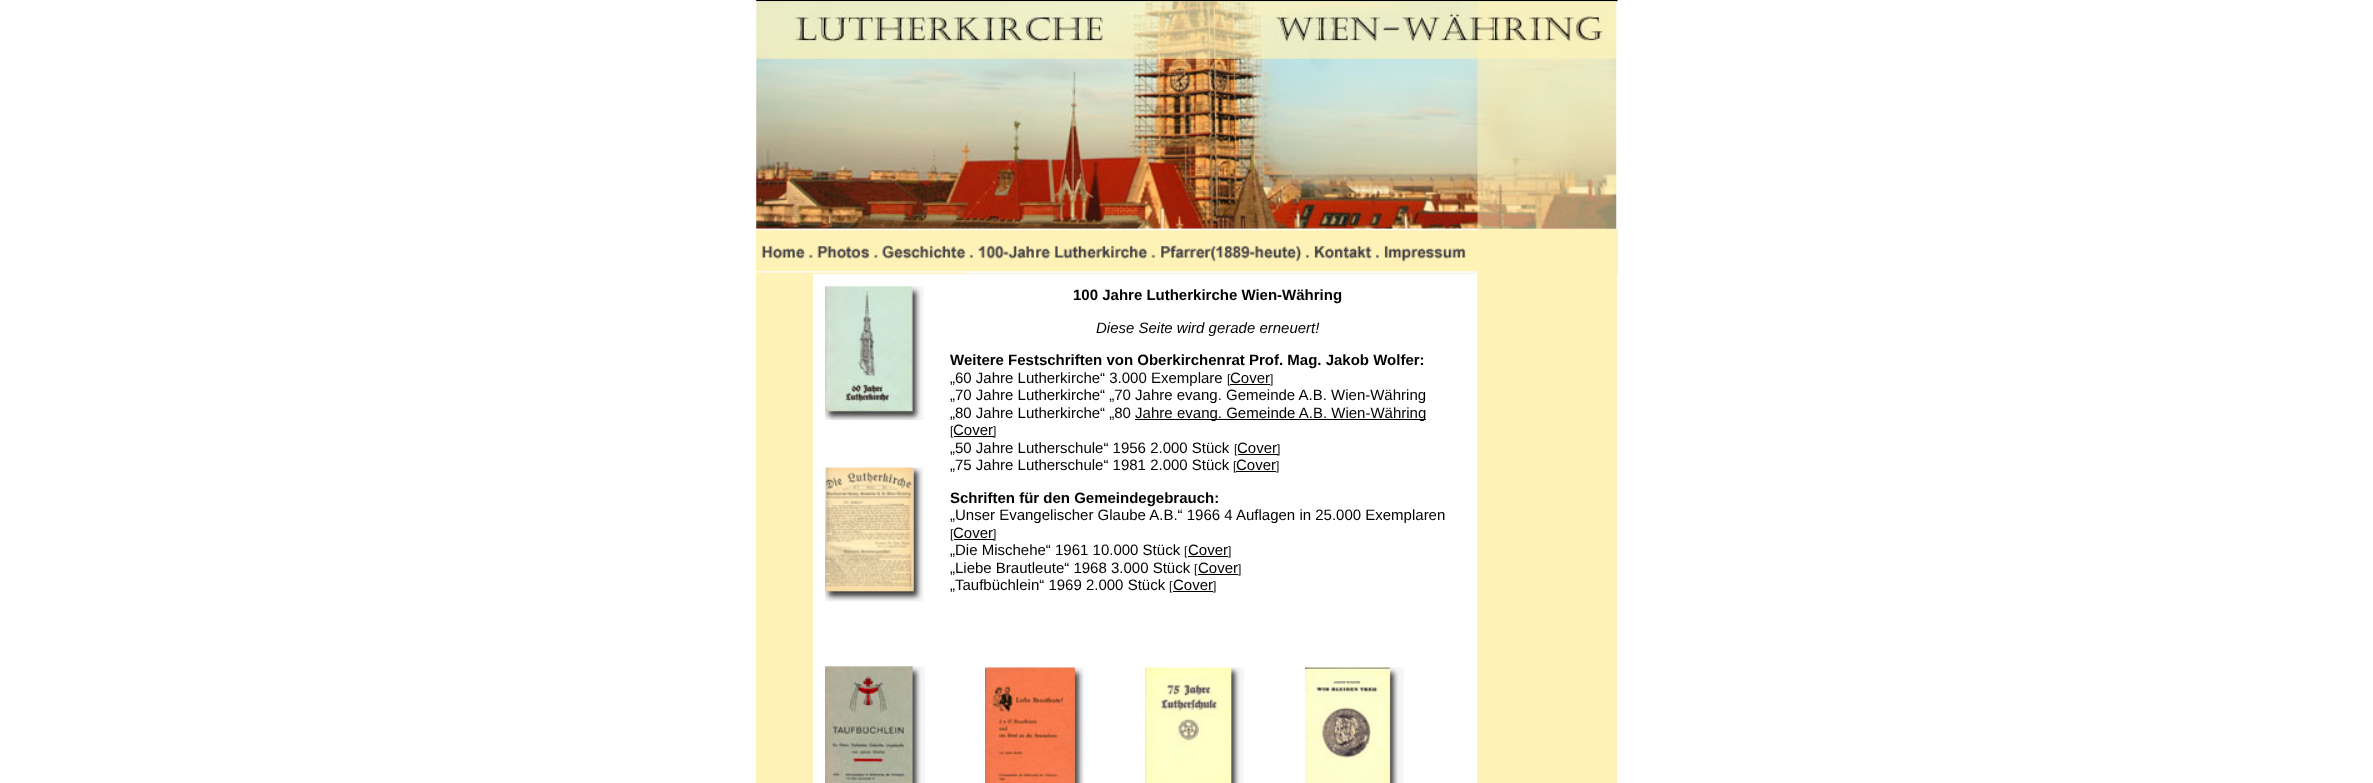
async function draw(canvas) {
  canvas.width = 2373
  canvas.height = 783
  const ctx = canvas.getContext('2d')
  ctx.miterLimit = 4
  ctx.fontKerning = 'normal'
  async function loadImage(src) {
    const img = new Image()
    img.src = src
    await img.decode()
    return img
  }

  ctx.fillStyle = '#fff'
  ctx.fillRect(0, 0, 2373, 783)
  ctx.drawImage(await loadImage('image0.png'), 756, 0, 862, 2)
  ctx.drawImage(await loadImage('image1.png'), 756, 1, 861, 228)
  ctx.fillStyle = '#fff2b7'
  ctx.fillRect(756, 229, 862, 45)
  ctx.drawImage(await loadImage('image2.png'), 756, 228, 722, 46)
  ctx.fillRect(756, 274, 57, 509)
  ctx.drawImage(await loadImage('image3.png'), 825, 286, 99, 134)
  ctx.drawImage(await loadImage('image4.png'), 825, 467, 99, 135)
  ctx.font = 'bold 15px Liberation Sans'
  ctx.fillStyle = '#000'
  ctx.fillText('100 Jahre Lutherkirche Wien-Währing', 1073, 300)
  ctx.font = 'italic 15px Liberation Sans'
  ctx.fillText('Diese Seite wird gerade erneuert!', 1096, 333)
  ctx.font = 'bold 15px Liberation Sans'
  ctx.fillText('Weitere Festschriften von Oberkirchenrat Prof. Mag. Jakob Wolfer:', 950, 365)
  ctx.font = '15px Liberation Sans'
  ctx.fillText('„60 Jahre Lutherkirche“ 3.000 Exemplare', 950, 383)
  ctx.font = '12px Liberation Sans'
  ctx.fillText('[', 1227, 383)
  ctx.fillRect(1230, 384, 40, 1)
  ctx.font = '15px Liberation Sans'
  ctx.fillText('Cover', 1230, 383)
  ctx.font = '12px Liberation Sans'
  ctx.fillText(']', 1270, 383)
  ctx.font = '15px Liberation Sans'
  ctx.fillText('„70 Jahre Lutherkirche“ „70 Jahre evang. Gemeinde A.B. Wien-Währing', 950, 400)
  ctx.fillText('„80 Jahre Lutherkirche“ „80 Jahre', 950, 418)
  ctx.fillRect(1135, 419, 291, 1)
  ctx.fillText('evang. Gemeinde A.B. Wien-Währing', 1177, 418)
  ctx.font = '12px Liberation Sans'
  ctx.fillText('[', 950, 435)
  ctx.fillRect(954, 436, 40, 1)
  ctx.font = '15px Liberation Sans'
  ctx.fillText('Cover', 953, 435)
  ctx.font = '12px Liberation Sans'
  ctx.fillText(']', 993, 435)
  ctx.font = '15px Liberation Sans'
  ctx.fillText('„50 Jahre Lutherschule“ 1956 2.000 Stück', 950, 453)
  ctx.font = '12px Liberation Sans'
  ctx.fillText('[', 1234, 453)
  ctx.font = '15px Liberation Sans'
  ctx.fillText('Cover', 1237, 453)
  ctx.fillRect(1238, 454, 40, 1)
  ctx.font = '12px Liberation Sans'
  ctx.fillText(']', 1277, 453)
  ctx.font = '15px Liberation Sans'
  ctx.fillText('„75 Jahre Lutherschule“ 1981 2.000 Stück', 950, 470)
  ctx.font = '12px Liberation Sans'
  ctx.fillText('[', 1233, 470)
  ctx.fillRect(1236, 471, 40, 1)
  ctx.font = '15px Liberation Sans'
  ctx.fillText('Cover', 1236, 470)
  ctx.font = '12px Liberation Sans'
  ctx.fillText(']', 1276, 470)
  ctx.font = 'bold 15px Liberation Sans'
  ctx.fillText('Schriften für den Gemeindegebrauch:', 950, 503)
  ctx.font = '15px Liberation Sans'
  ctx.fillText('„Unser Evangelischer Glaube A.B.“ 1966 4 Auflagen in 25.000 Exemplaren', 950, 520)
  ctx.font = '12px Liberation Sans'
  ctx.fillText('[', 950, 538)
  ctx.fillRect(954, 539, 40, 1)
  ctx.font = '15px Liberation Sans'
  ctx.fillText('Cover', 953, 538)
  ctx.font = '12px Liberation Sans'
  ctx.fillText(']', 993, 538)
  ctx.font = '15px Liberation Sans'
  ctx.fillText('„Die Mischehe“ 1961 10.000 Stück', 950, 555)
  ctx.font = '12px Liberation Sans'
  ctx.fillText('[', 1184, 555)
  ctx.fillRect(1188, 556, 40, 1)
  ctx.font = '15px Liberation Sans'
  ctx.fillText('Cover', 1188, 555)
  ctx.font = '12px Liberation Sans'
  ctx.fillText(']', 1228, 555)
  ctx.font = '15px Liberation Sans'
  ctx.fillText('„Liebe Brautleute“ 1968 3.000 Stück', 950, 573)
  ctx.font = '12px Liberation Sans'
  ctx.fillText('[', 1194, 573)
  ctx.fillRect(1198, 574, 40, 1)
  ctx.font = '15px Liberation Sans'
  ctx.fillText('Cover', 1198, 573)
  ctx.font = '12px Liberation Sans'
  ctx.fillText(']', 1238, 573)
  ctx.font = '15px Liberation Sans'
  ctx.fillText('„Taufbüchlein“ 1969 2.000 Stück', 950, 590)
  ctx.font = '12px Liberation Sans'
  ctx.fillText('[', 1169, 590)
  ctx.fillRect(1173, 591, 40, 1)
  ctx.font = '15px Liberation Sans'
  ctx.fillText('Cover', 1173, 590)
  ctx.font = '12px Liberation Sans'
  ctx.fillText(']', 1213, 590)
  ctx.drawImage(await loadImage('image5.png'), 825, 666, 100, 117)
  ctx.drawImage(await loadImage('image6.png'), 985, 667, 99, 116)
  ctx.drawImage(await loadImage('image7.png'), 1145, 667, 99, 116)
  ctx.drawImage(await loadImage('image8.png'), 1305, 667, 99, 116)
  ctx.fillStyle = '#fff2b7'
  ctx.fillRect(1477, 274, 140, 509)
}

draw(document.querySelector('canvas'))
